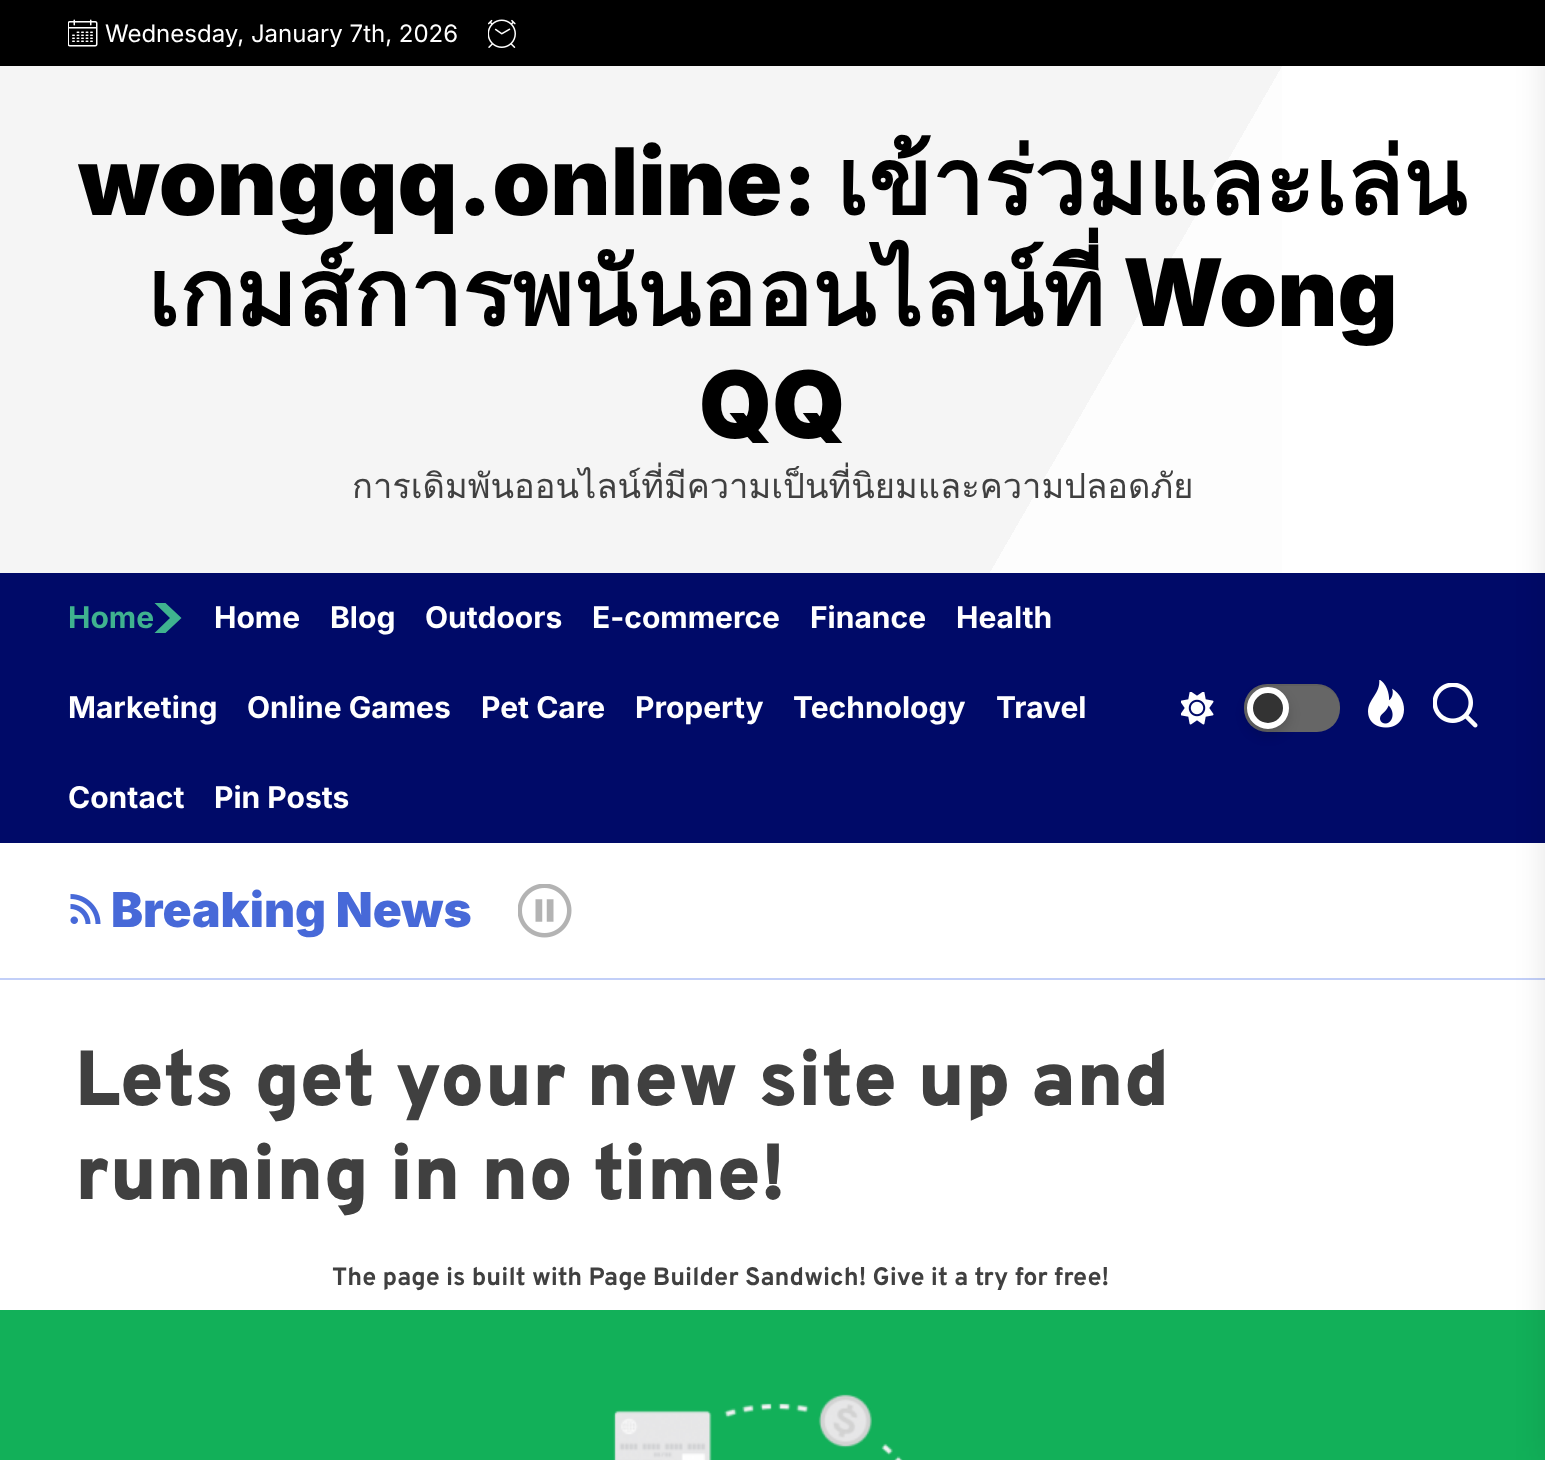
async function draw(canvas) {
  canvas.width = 1545
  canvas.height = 1460
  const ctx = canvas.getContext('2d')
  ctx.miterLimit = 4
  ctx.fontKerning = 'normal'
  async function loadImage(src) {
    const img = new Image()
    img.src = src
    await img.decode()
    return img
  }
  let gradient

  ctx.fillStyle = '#fff'
  ctx.fillRect(0, 0, 1545, 1460)
  gradient = ctx.createLinearGradient(1534, 861, 11, -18)
  gradient.addColorStop(0.35, '#fdfdfd')
  gradient.addColorStop(0.35, '#f5f5f5')
  ctx.fillStyle = gradient
  ctx.fillRect(0, 66, 1282, 507)
  ctx.fillStyle = '#000'
  ctx.fillRect(0, 0, 1545, 66)
  ctx.drawImage(await loadImage('image0.png'), 68, 19, 30, 28)
  ctx.font = '24px Inter'
  ctx.fillStyle = '#fff'
  ctx.fillText('Wednesday, January 7th, 2026', 105, 42)
  ctx.drawImage(await loadImage('image1.png'), 488, 19, 28, 29)
  ctx.font = '900 93px Inter'
  ctx.fillStyle = '#000'
  ctx.fillText('wongqq.online:', 78, 215)
  ctx.font = 'bold 93px Loma'
  ctx.fillText('เข้าร่วมและเล่น', 836, 215)
  ctx.fillText('เกมส์การพนันออนไลน์ที่', 147, 326)
  ctx.font = '900 93px Inter'
  ctx.fillText('Wong', 1123, 326)
  ctx.fillText('QQ', 699, 438)
  ctx.font = '34.5px Loma'
  ctx.fillStyle = '#404040'
  ctx.fillText('การเดิมพันออนไลน์ที่มีความเป็นที่นิยมและความปลอดภัย', 352, 498)
  ctx.fillStyle = '#000a68'
  ctx.fillRect(0, 573, 1545, 270)
  ctx.font = 'bold 30px Inter'
  ctx.fillStyle = '#3fb28f'
  ctx.fillText('Home', 68, 628)
  ctx.beginPath()
  ctx.moveTo(170, 618)
  ctx.lineTo(154.5, 603)
  ctx.lineTo(165.5, 603)
  ctx.lineTo(181.5, 618)
  ctx.lineTo(165.5, 633)
  ctx.lineTo(154.5, 633)
  ctx.closePath()
  ctx.fill()
  ctx.fillStyle = '#fff'
  ctx.fillText('Home', 214, 628)
  ctx.fillText('Blog', 330, 628)
  ctx.fillText('Outdoors', 425, 628)
  ctx.fillText('E-commerce', 592, 628)
  ctx.fillText('Finance', 810, 628)
  ctx.fillText('Health', 956, 628)
  ctx.fillText('Marketing', 68, 718)
  ctx.fillText('Online Games', 247, 718)
  ctx.fillText('Pet Care', 481, 718)
  ctx.fillText('Property', 635, 718)
  ctx.fillText('Technology', 793, 718)
  ctx.fillText('Travel', 996, 718)
  ctx.fillText('Contact', 68, 808)
  ctx.fillText('Pin Posts', 214, 808)
  ctx.drawImage(await loadImage('image2.png'), 1181, 692, 33, 33)
  ctx.fillStyle = '#666'
  ctx.beginPath()
  ctx.roundRect(1244, 684, 96, 48, 23)
  ctx.fill()
  ctx.fillStyle = '#0000000d'
  ctx.beginPath()
  ctx.moveTo(1266, 686)
  ctx.lineTo(1317, 686)
  ctx.bezierCurveTo(1329, 686, 1340, 696, 1340, 708)
  ctx.lineTo(1340, 707)
  ctx.bezierCurveTo(1340, 694, 1330, 684, 1317, 684)
  ctx.lineTo(1267, 684)
  ctx.bezierCurveTo(1254, 684, 1244, 694, 1244, 707)
  ctx.lineTo(1244, 708)
  ctx.bezierCurveTo(1244, 696, 1254, 686, 1266, 686)
  ctx.closePath()
  ctx.fill()
  ctx.fillStyle = '#00000029'
  ctx.filter = 'blur(6px)'
  ctx.beginPath()
  ctx.roundRect(1247, 693, 42, 42, 21)
  ctx.fill()
  ctx.filter = 'none'
  ctx.fillStyle = '#333'
  ctx.beginPath()
  ctx.arc(1268, 708, 18, 0, 2 * Math.PI)
  ctx.fill()
  ctx.strokeStyle = '#fff'
  ctx.lineWidth = 6
  ctx.stroke()
  ctx.drawImage(await loadImage('image3.png'), 1368, 680, 36, 48)
  ctx.drawImage(await loadImage('image4.png'), 1433, 683, 45, 45)
  ctx.fillStyle = '#c2cff8'
  ctx.fillRect(0, 978, 1545, 2)
  ctx.fillStyle = '#12b059'
  ctx.fillRect(0, 1310, 1545, 150)
  ctx.fillStyle = '#0000001a'
  ctx.filter = 'blur(15px)'
  ctx.beginPath()
  ctx.rect(1545, 0, 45, 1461)
  ctx.fill()
  ctx.filter = 'none'
  ctx.drawImage(await loadImage('image5.png'), 70, 894, 31, 30)
  ctx.font = '900 48px Inter'
  ctx.fillStyle = '#4769d8'
  ctx.fillText('Breaking News', 111, 927)
  ctx.drawImage(await loadImage('image6.png'), 518, 884, 54, 54)
  ctx.font = '900 78px Overpass'
  ctx.fillStyle = '#404040'
  ctx.fillText('Lets get your new site up and', 75, 1105)
  ctx.fillText('running in no time!', 75, 1199)
  ctx.font = 'bold 25.2px Overpass'
  ctx.fillText('The page is built with Page Builder Sandwich! Give it a try for free!', 332, 1285)
  ctx.drawImage(await loadImage('image7.png'), 613, 1394, 290, 66)
}

draw(document.querySelector('canvas'))
